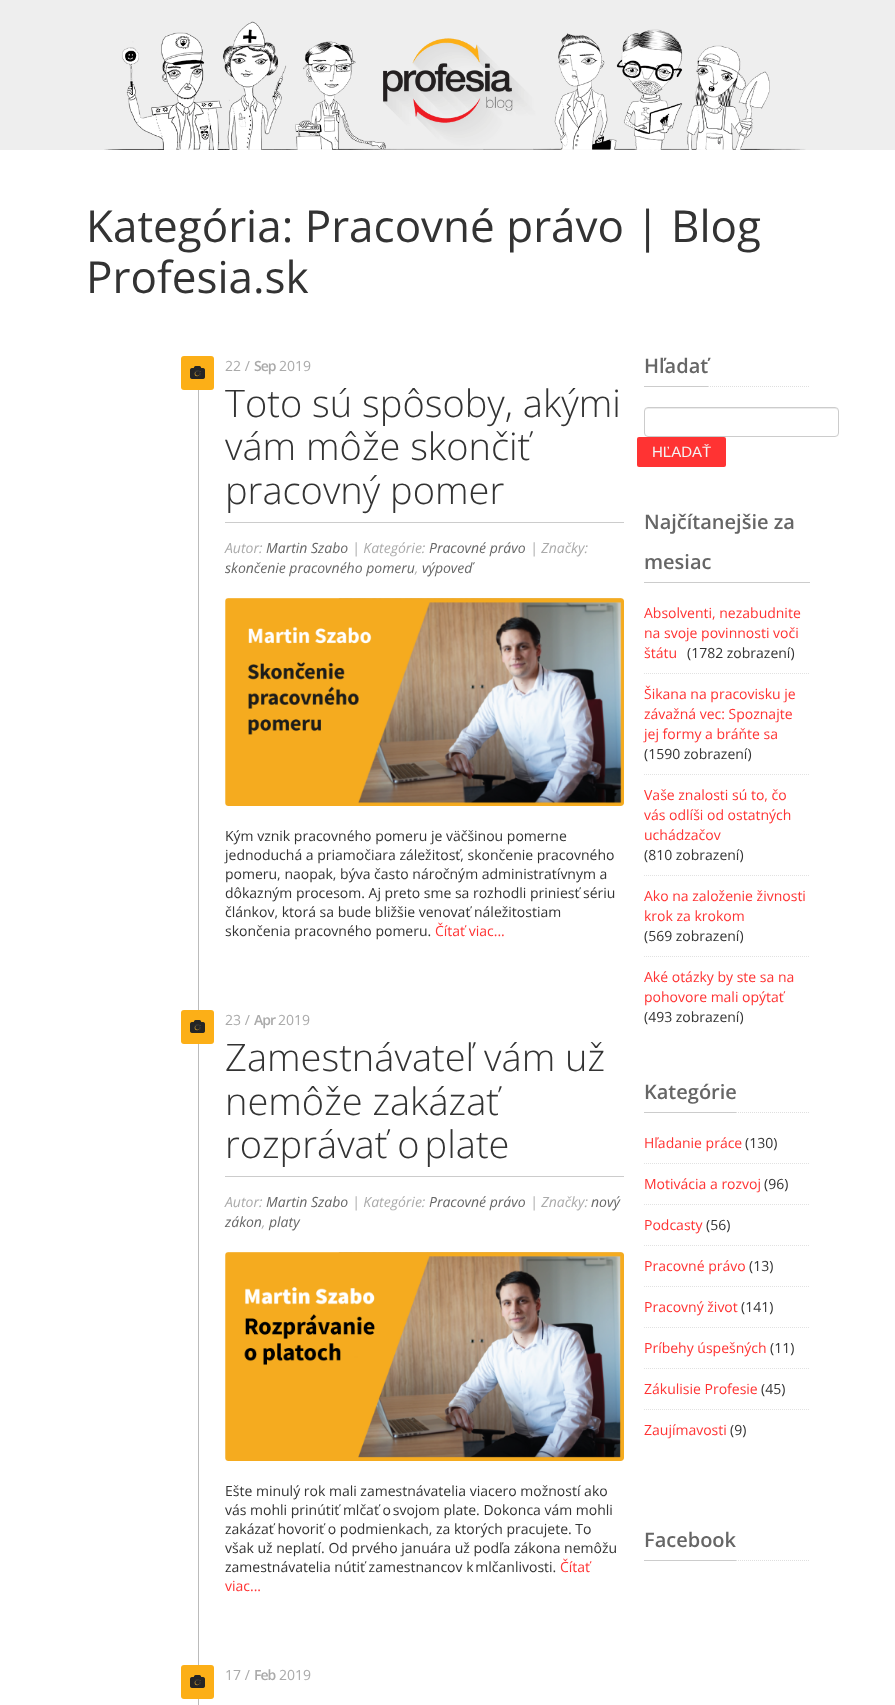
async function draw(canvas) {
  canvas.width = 895
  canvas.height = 1705
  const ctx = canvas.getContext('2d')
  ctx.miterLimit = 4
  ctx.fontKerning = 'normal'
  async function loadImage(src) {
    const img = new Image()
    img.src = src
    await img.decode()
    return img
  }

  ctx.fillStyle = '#fff'
  ctx.fillRect(0, 0, 895, 1705)
  ctx.fillStyle = '#eee'
  ctx.fillRect(0, 0, 895, 150)
  ctx.drawImage(await loadImage('image0.png'), 104, 21, 702, 129)
  ctx.font = '44px Open Sans'
  ctx.fillStyle = '#333'
  ctx.fillText('Kategória: Pracovné právo | Blog', 86, 242)
  ctx.fillText('Profesia.sk', 86, 293)
  ctx.fillStyle = '#bbb'
  ctx.fillRect(198, 390, 1, 620)
  ctx.fillStyle = '#fcaf17'
  ctx.beginPath()
  ctx.roundRect(181, 356, 33, 34, 3)
  ctx.fill()
  ctx.drawImage(await loadImage('image1.png'), 191, 370, 10, 9)
  ctx.drawImage(await loadImage('image2.png'), 190, 366, 15, 13)
  ctx.font = '14px Open Sans'
  ctx.fillStyle = '#aaa'
  ctx.fillText('22 /', 225, 371)
  ctx.letterSpacing = '-1px'
  ctx.font = '600 14px Open Sans'
  ctx.fillText('Sep', 254, 371)
  ctx.letterSpacing = '0px'
  ctx.font = '14px Open Sans'
  ctx.fillText('2019', 279, 371)
  ctx.fillStyle = '#ccc'
  ctx.fillRect(225, 522, 399, 1)
  ctx.font = '300 38px Open Sans'
  ctx.fillStyle = '#333'
  ctx.fillText('Toto sú spôsoby, akými', 225, 417)
  ctx.fillText('vám môže skončiť', 225, 460)
  ctx.fillText('pracovný pomer', 225, 504)
  ctx.font = 'italic 14px Open Sans'
  ctx.fillStyle = '#aaa'
  ctx.fillText('Autor:', 225, 553)
  ctx.fillStyle = '#666'
  ctx.fillText('Martin Szabo', 266, 553)
  ctx.fillStyle = '#aaa'
  ctx.fillText('| Kategórie:', 352, 553)
  ctx.fillStyle = '#666'
  ctx.fillText('Pracovné právo', 429, 553)
  ctx.fillStyle = '#aaa'
  ctx.fillText('| Značky:', 530, 553)
  ctx.fillStyle = '#666'
  ctx.fillText('skončenie pracovného pomeru', 225, 573)
  ctx.fillStyle = '#aaa'
  ctx.fillText(',', 415, 573)
  ctx.fillStyle = '#666'
  ctx.fillText('výpoveď', 422, 573)
  ctx.drawImage(await loadImage('image3.png'), 225, 598, 399, 208)
  ctx.font = '14px Open Sans'
  ctx.fillStyle = '#333'
  ctx.fillText('Kým vznik pracovného pomeru je väčšinou pomerne', 225, 841)
  ctx.fillText('jednoduchá a priamočiara záležitosť, skončenie pracovného', 225, 860)
  ctx.fillText('pomeru, naopak, býva často náročným administratívnym a', 225, 879)
  ctx.fillText('dôkazným procesom. Aj preto sme sa rozhodli priniesť sériu', 225, 898)
  ctx.fillText('článkov, ktorá sa bude bližšie venovať náležitostiam', 225, 917)
  ctx.fillText('skončenia pracovného pomeru.', 225, 936)
  ctx.fillStyle = '#f33'
  ctx.fillText('Čítať viac...', 435, 936)
  ctx.fillStyle = '#bbb'
  ctx.fillRect(198, 1044, 1, 621)
  ctx.fillStyle = '#fcaf17'
  ctx.beginPath()
  ctx.roundRect(181, 1010, 33, 34, 3)
  ctx.fill()
  ctx.drawImage(await loadImage('image1.png'), 191, 1024, 10, 9)
  ctx.drawImage(await loadImage('image2.png'), 190, 1020, 15, 13)
  ctx.fillStyle = '#aaa'
  ctx.fillText('23 /', 225, 1025)
  ctx.letterSpacing = '-1px'
  ctx.font = '600 14px Open Sans'
  ctx.fillText('Apr', 254, 1025)
  ctx.letterSpacing = '0px'
  ctx.font = '14px Open Sans'
  ctx.fillText('2019', 278, 1025)
  ctx.fillStyle = '#ccc'
  ctx.fillRect(225, 1176, 399, 1)
  ctx.font = '300 38px Open Sans'
  ctx.fillStyle = '#333'
  ctx.fillText('Zamestnávateľ vám už', 225, 1071)
  ctx.fillText('nemôže zakázať', 225, 1115)
  ctx.fillText('rozprávať o plate', 225, 1158)
  ctx.font = 'italic 14px Open Sans'
  ctx.fillStyle = '#aaa'
  ctx.fillText('Autor:', 225, 1207)
  ctx.fillStyle = '#666'
  ctx.fillText('Martin Szabo', 266, 1207)
  ctx.fillStyle = '#aaa'
  ctx.fillText('| Kategórie:', 352, 1207)
  ctx.fillStyle = '#666'
  ctx.fillText('Pracovné právo', 429, 1207)
  ctx.fillStyle = '#aaa'
  ctx.fillText('| Značky:', 530, 1207)
  ctx.fillStyle = '#666'
  ctx.fillText('nový', 591, 1207)
  ctx.fillText('zákon', 225, 1227)
  ctx.fillStyle = '#aaa'
  ctx.fillText(',', 262, 1227)
  ctx.fillStyle = '#666'
  ctx.fillText('platy', 269, 1227)
  ctx.drawImage(await loadImage('image4.png'), 225, 1252, 399, 209)
  ctx.font = '14px Open Sans'
  ctx.fillStyle = '#333'
  ctx.fillText('Ešte minulý rok mali zamestnávatelia viacero možností ako', 225, 1496)
  ctx.fillText('vás mohli prinútiť mlčať o svojom plate. Dokonca vám mohli', 225, 1515)
  ctx.fillText('zakázať hovoriť o podmienkach, za ktorých pracujete. To', 225, 1534)
  ctx.fillText('však už neplatí. Od prvého januára už podľa zákona nemôžu', 225, 1553)
  ctx.fillText('zamestnávatelia nútiť zamestnancov k mlčanlivosti.', 225, 1572)
  ctx.fillStyle = '#f33'
  ctx.fillText('Čítať', 560, 1572)
  ctx.fillText('viac...', 225, 1591)
  ctx.fillStyle = '#bbb'
  ctx.fillRect(198, 1699, 1, 6)
  ctx.fillStyle = '#fcaf17'
  ctx.beginPath()
  ctx.roundRect(181, 1665, 33, 34, 3)
  ctx.fill()
  ctx.drawImage(await loadImage('image1.png'), 191, 1679, 10, 9)
  ctx.drawImage(await loadImage('image2.png'), 190, 1675, 15, 13)
  ctx.fillStyle = '#aaa'
  ctx.fillText('17 /', 225, 1680)
  ctx.letterSpacing = '-1px'
  ctx.font = '600 14px Open Sans'
  ctx.fillText('Feb', 254, 1680)
  ctx.letterSpacing = '0px'
  ctx.font = '14px Open Sans'
  ctx.fillText('2019', 279, 1680)
  ctx.beginPath()
  ctx.moveTo(644, 386.5)
  ctx.lineTo(810, 386.5)
  ctx.strokeStyle = '#dfdfdf'
  ctx.setLineDash([1, 1])
  ctx.stroke()
  ctx.fillStyle = '#ccc'
  ctx.fillRect(644, 386, 64, 1)
  ctx.font = '600 20px Open Sans'
  ctx.fillStyle = '#666'
  ctx.fillText('Hľadať', 644, 373)
  ctx.fillStyle = '#ececec'
  ctx.beginPath()
  ctx.moveTo(648, 409)
  ctx.lineTo(835, 409)
  ctx.bezierCurveTo(837, 409, 838, 410, 838, 412)
  ctx.bezierCurveTo(838, 410, 837, 408, 835, 408)
  ctx.lineTo(648, 408)
  ctx.bezierCurveTo(646, 408, 645, 410, 645, 412)
  ctx.bezierCurveTo(645, 410, 646, 409, 648, 409)
  ctx.closePath()
  ctx.fill()
  ctx.beginPath()
  ctx.roundRect(644.5, 407.5, 194, 29, 3.5)
  ctx.strokeStyle = '#ccc'
  ctx.setLineDash([])
  ctx.stroke()
  ctx.fillStyle = '#f33'
  ctx.beginPath()
  ctx.roundRect(637, 437, 89, 30, 2)
  ctx.fill()
  ctx.font = '15px Liberation Sans'
  ctx.fillStyle = '#f4f4f4'
  ctx.fillText('HĽADAŤ', 652, 457)
  ctx.fillStyle = '#ccc'
  ctx.fillRect(644, 582, 166, 1)
  ctx.font = '600 20px Open Sans'
  ctx.fillStyle = '#666'
  ctx.fillText('Najčítanejšie za', 644, 529)
  ctx.fillText('mesiac', 644, 569)
  ctx.beginPath()
  ctx.moveTo(644, 673.5)
  ctx.lineTo(810, 673.5)
  ctx.strokeStyle = '#e2e2e2'
  ctx.setLineDash([1, 1])
  ctx.stroke()
  ctx.font = '14px Open Sans'
  ctx.fillStyle = '#f33'
  ctx.fillText('Absolventi, nezabudnite', 644, 618)
  ctx.fillText('na svoje povinnosti voči', 644, 638)
  ctx.fillText('štátu', 644, 658)
  ctx.fillStyle = '#333'
  ctx.fillText('(1782 zobrazení)', 687, 658)
  ctx.beginPath()
  ctx.moveTo(644, 774.5)
  ctx.lineTo(810, 774.5)
  ctx.stroke()
  ctx.fillStyle = '#f33'
  ctx.fillText('Šikana na pracovisku je', 644, 699)
  ctx.fillText('závažná vec: Spoznajte', 644, 719)
  ctx.fillText('jej formy a bráňte sa', 644, 739)
  ctx.fillStyle = '#333'
  ctx.fillText('(1590 zobrazení)', 644, 759)
  ctx.beginPath()
  ctx.moveTo(644, 875.5)
  ctx.lineTo(810, 875.5)
  ctx.stroke()
  ctx.fillStyle = '#f33'
  ctx.fillText('Vaše znalosti sú to, čo', 644, 800)
  ctx.fillText('vás odlíši od ostatných', 644, 820)
  ctx.fillText('uchádzačov', 644, 840)
  ctx.fillStyle = '#333'
  ctx.fillText('(810 zobrazení)', 644, 860)
  ctx.beginPath()
  ctx.moveTo(644, 956.5)
  ctx.lineTo(810, 956.5)
  ctx.stroke()
  ctx.fillStyle = '#f33'
  ctx.fillText('Ako na založenie živnosti', 644, 901)
  ctx.fillText('krok za krokom', 644, 921)
  ctx.fillStyle = '#333'
  ctx.fillText('(569 zobrazení)', 644, 941)
  ctx.fillStyle = '#f33'
  ctx.fillText('Aké otázky by ste sa na', 644, 982)
  ctx.fillText('pohovore mali opýtať', 644, 1002)
  ctx.fillStyle = '#333'
  ctx.fillText('(493 zobrazení)', 644, 1022)
  ctx.beginPath()
  ctx.moveTo(644, 1112.5)
  ctx.lineTo(810, 1112.5)
  ctx.strokeStyle = '#dfdfdf'
  ctx.stroke()
  ctx.fillStyle = '#ccc'
  ctx.fillRect(644, 1112, 92, 1)
  ctx.font = '600 20px Open Sans'
  ctx.fillStyle = '#666'
  ctx.fillText('Kategórie', 644, 1099)
  ctx.beginPath()
  ctx.moveTo(644, 1163.5)
  ctx.lineTo(810, 1163.5)
  ctx.strokeStyle = '#e2e2e2'
  ctx.stroke()
  ctx.font = '14px Open Sans'
  ctx.fillStyle = '#f33'
  ctx.fillText('Hľadanie práce', 644, 1148)
  ctx.fillStyle = '#333'
  ctx.fillText('(130)', 745, 1148)
  ctx.beginPath()
  ctx.moveTo(644, 1204.5)
  ctx.lineTo(810, 1204.5)
  ctx.stroke()
  ctx.fillStyle = '#f33'
  ctx.fillText('Motivácia a rozvoj', 644, 1189)
  ctx.fillStyle = '#333'
  ctx.fillText('(96)', 764, 1189)
  ctx.beginPath()
  ctx.moveTo(644, 1245.5)
  ctx.lineTo(810, 1245.5)
  ctx.stroke()
  ctx.fillStyle = '#f33'
  ctx.fillText('Podcasty', 644, 1230)
  ctx.fillStyle = '#333'
  ctx.fillText('(56)', 706, 1230)
  ctx.beginPath()
  ctx.moveTo(644, 1286.5)
  ctx.lineTo(810, 1286.5)
  ctx.stroke()
  ctx.fillStyle = '#f33'
  ctx.fillText('Pracovné právo', 644, 1271)
  ctx.fillStyle = '#333'
  ctx.fillText('(13)', 749, 1271)
  ctx.beginPath()
  ctx.moveTo(644, 1327.5)
  ctx.lineTo(810, 1327.5)
  ctx.stroke()
  ctx.fillStyle = '#f33'
  ctx.fillText('Pracovný život', 644, 1312)
  ctx.fillStyle = '#333'
  ctx.fillText('(141)', 741, 1312)
  ctx.beginPath()
  ctx.moveTo(644, 1368.5)
  ctx.lineTo(810, 1368.5)
  ctx.stroke()
  ctx.fillStyle = '#f33'
  ctx.fillText('Príbehy úspešných', 644, 1353)
  ctx.fillStyle = '#333'
  ctx.fillText('(11)', 770, 1353)
  ctx.beginPath()
  ctx.moveTo(644, 1409.5)
  ctx.lineTo(810, 1409.5)
  ctx.stroke()
  ctx.fillStyle = '#f33'
  ctx.fillText('Zákulisie Profesie', 644, 1394)
  ctx.fillStyle = '#333'
  ctx.fillText('(45)', 761, 1394)
  ctx.fillStyle = '#f33'
  ctx.fillText('Zaujímavosti', 644, 1435)
  ctx.fillStyle = '#333'
  ctx.fillText('(9)', 730, 1435)
  ctx.beginPath()
  ctx.moveTo(644, 1560.5)
  ctx.lineTo(810, 1560.5)
  ctx.strokeStyle = '#dfdfdf'
  ctx.stroke()
  ctx.fillStyle = '#ccc'
  ctx.fillRect(644, 1560, 92, 1)
  ctx.font = '600 20px Open Sans'
  ctx.fillStyle = '#666'
  ctx.fillText('Facebook', 644, 1547)
}

draw(document.querySelector('canvas'))
